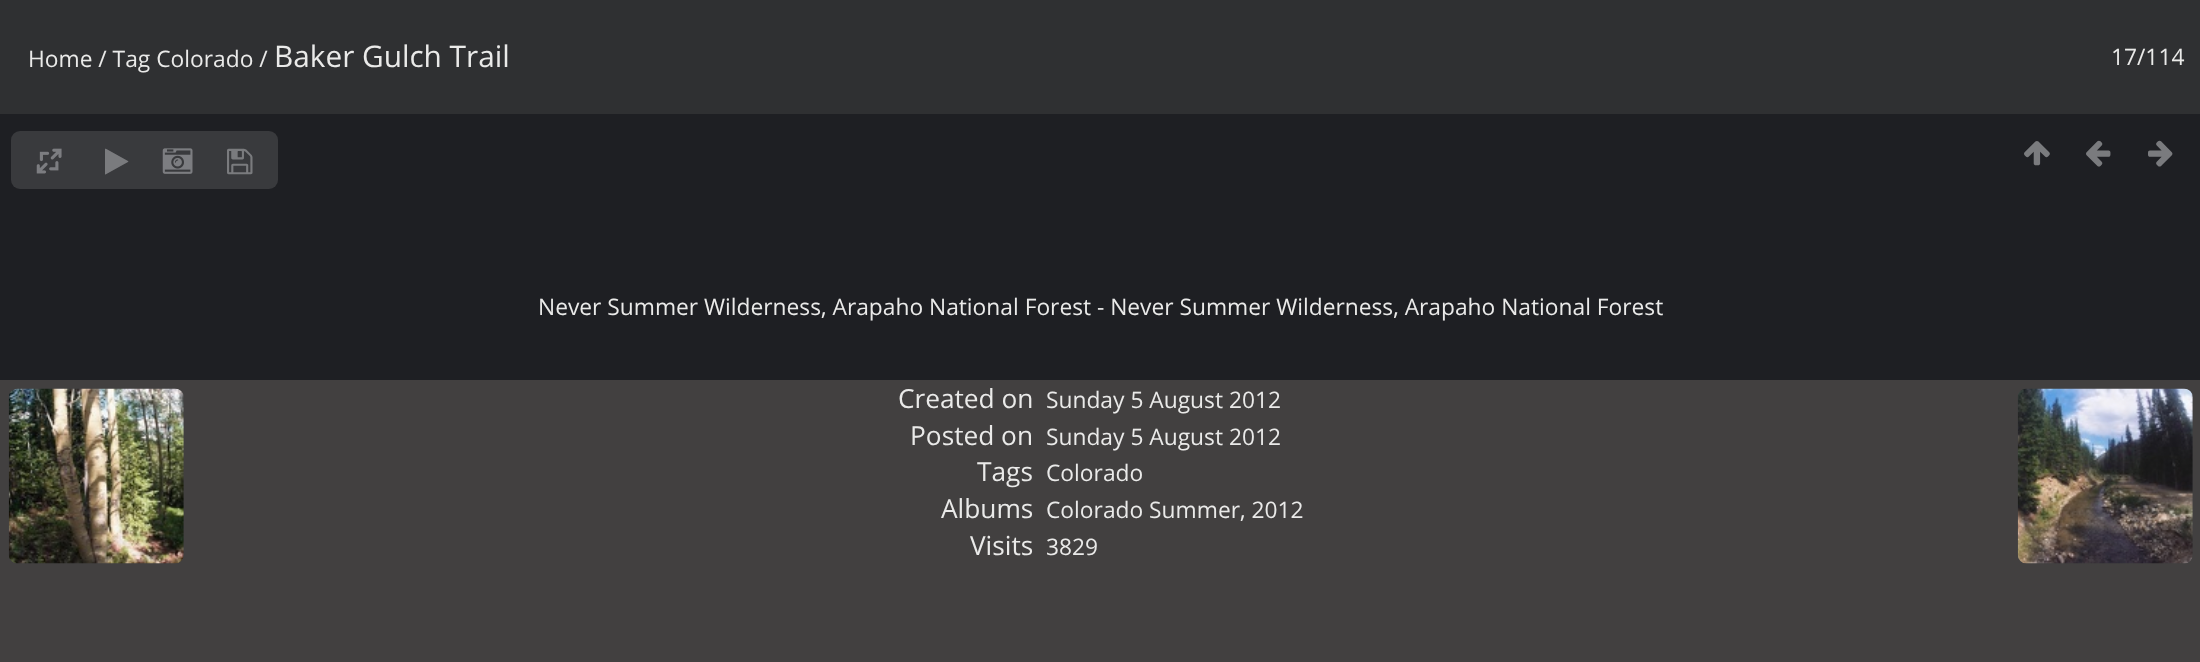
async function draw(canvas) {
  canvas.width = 2200
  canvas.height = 662
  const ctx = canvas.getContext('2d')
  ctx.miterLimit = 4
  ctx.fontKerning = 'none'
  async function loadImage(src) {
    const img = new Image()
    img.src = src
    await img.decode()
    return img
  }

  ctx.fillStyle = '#1e1f23'
  ctx.fillRect(0, 0, 2200, 662)
  ctx.fillStyle = '#2f3032'
  ctx.fillRect(0, 0, 2200, 114)
  ctx.font = '22.75px Open Sans'
  ctx.fillStyle = '#eaeae9'
  ctx.fillText('Home / Tag Colorado /', 28, 67)
  ctx.font = '29.75px Open Sans'
  ctx.fillText('Baker Gulch Trail', 274, 67)
  ctx.font = '22.75px Open Sans'
  ctx.fillText('17/114', 2111, 65)
  ctx.fillStyle = '#393a3d'
  ctx.beginPath()
  ctx.roundRect(11, 131, 267, 58, 9)
  ctx.fill()
  ctx.drawImage(await loadImage('image0.png'), 36, 148, 26, 26)
  ctx.font = '29.75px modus'
  ctx.fillStyle = '#7a7b7e'
  ctx.fillText('▶', 105, 172)
  ctx.drawImage(await loadImage('image1.png'), 162, 148, 31, 26)
  ctx.fillText('💾', 227, 172)
  ctx.fillText('↑', 2024, 163)
  ctx.fillText('←', 2086, 163)
  ctx.fillText('→', 2148, 163)
  ctx.font = '22.75px Open Sans'
  ctx.fillStyle = '#eaeae9'
  ctx.fillText('Never Summer Wilderness, Arapaho National Forest - Never Summer Wilderness, Arapaho National Forest', 538, 315)
  ctx.fillStyle = '#424040'
  ctx.fillRect(0, 380, 2200, 282)
  ctx.drawImage(await loadImage('image2.png'), 8, 388, 176, 176)
  ctx.drawImage(await loadImage('image3.png'), 2017, 388, 176, 176)
  ctx.font = '26.25px Open Sans'
  ctx.fillStyle = '#eaeae9'
  ctx.fillText('Created on', 898, 408)
  ctx.font = '22.75px Open Sans'
  ctx.fillText('Sunday 5 August 2012', 1046, 408)
  ctx.font = '26.25px Open Sans'
  ctx.fillText('Posted on', 910, 445)
  ctx.font = '22.75px Open Sans'
  ctx.fillText('Sunday 5 August 2012', 1046, 445)
  ctx.font = '26.25px Open Sans'
  ctx.fillText('Tags', 977, 481)
  ctx.font = '22.75px Open Sans'
  ctx.fillText('Colorado', 1046, 481)
  ctx.font = '26.25px Open Sans'
  ctx.fillText('Albums', 941, 518)
  ctx.font = '22.75px Open Sans'
  ctx.fillText('Colorado Summer, 2012', 1046, 518)
  ctx.font = '26.25px Open Sans'
  ctx.fillText('Visits', 970, 555)
  ctx.font = '22.75px Open Sans'
  ctx.fillText('3829', 1046, 555)
}

draw(document.querySelector('canvas'))
